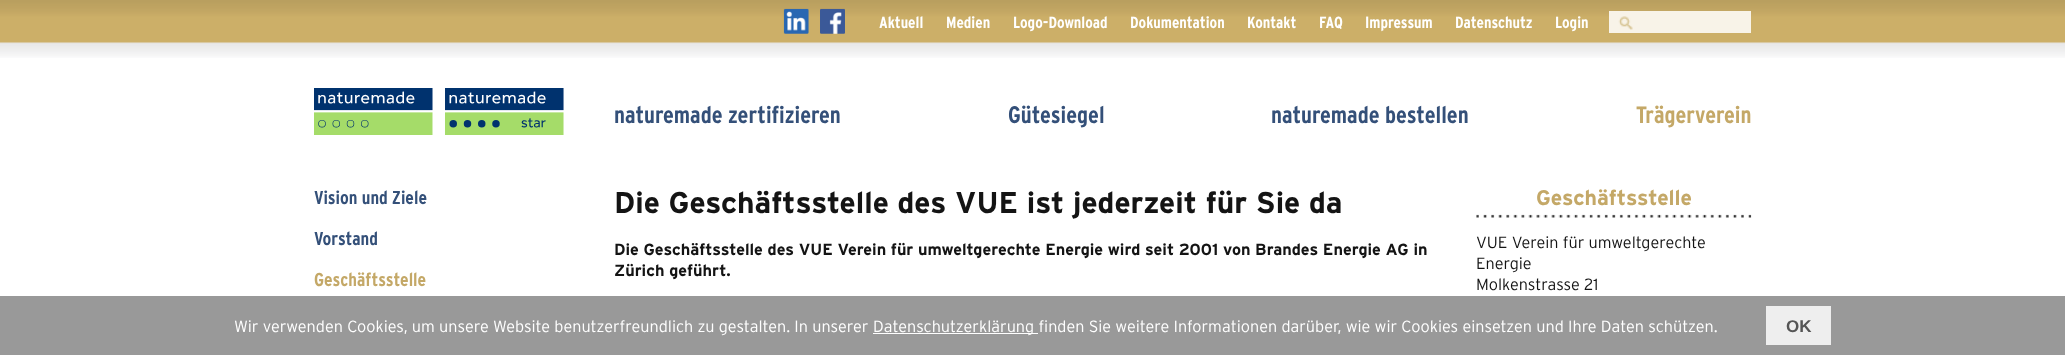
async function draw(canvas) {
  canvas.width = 2065
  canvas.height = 355
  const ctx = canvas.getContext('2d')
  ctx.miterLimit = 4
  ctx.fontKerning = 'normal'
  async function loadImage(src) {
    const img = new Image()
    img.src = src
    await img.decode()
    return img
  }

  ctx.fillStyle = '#fff'
  ctx.fillRect(0, 0, 2065, 355)
  ctx.drawImage(await loadImage('image0.png'), 0, 0, 2065, 58)
  ctx.drawImage(await loadImage('image1.png'), 783, 8, 26, 26)
  ctx.drawImage(await loadImage('image2.png'), 820, 8, 25, 26)
  ctx.font = 'bold 16.25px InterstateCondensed'
  ctx.fillText('Aktuell', 879, 28)
  ctx.fillText('Medien', 946, 28)
  ctx.fillText('Logo-Download', 1013, 28)
  ctx.fillText('Dokumentation', 1130, 28)
  ctx.fillText('Kontakt', 1247, 28)
  ctx.fillText('FAQ', 1319, 28)
  ctx.fillText('Impressum', 1365, 28)
  ctx.fillText('Datenschutz', 1455, 28)
  ctx.fillText('Login', 1555, 28)
  ctx.fillStyle = '#f8f3e8'
  ctx.fillRect(1609, 11, 142, 22)
  ctx.drawImage(await loadImage('image3.png'), 1618, 16, 15, 14)
  ctx.drawImage(await loadImage('image4.png'), 314, 88, 250, 47)
  ctx.font = 'bold 23.75px InterstateCondensed'
  ctx.fillStyle = '#345079'
  ctx.fillText('naturemade zertifizieren', 614, 123)
  ctx.fillText('Gütesiegel', 1008, 123)
  ctx.fillText('naturemade bestellen', 1271, 123)
  ctx.fillStyle = '#c4a867'
  ctx.fillText('Trägerverein', 1636, 123)
  ctx.font = 'bold 18.75px InterstateCondensed'
  ctx.fillStyle = '#345079'
  ctx.fillText('Vision und Ziele', 314, 204)
  ctx.fillText('Vorstand', 314, 245)
  ctx.fillStyle = '#c4a867'
  ctx.fillText('Geschäftsstelle', 314, 286)
  ctx.font = 'bold 30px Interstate'
  ctx.fillStyle = '#141414'
  ctx.fillText('Die Geschäftsstelle des VUE ist jederzeit für Sie da', 614, 213)
  ctx.font = 'bold 16.25px Interstate'
  ctx.fillText('Die Geschäftsstelle des VUE Verein für umweltgerechte Energie wird seit 2001 von Brandes Energie AG in', 614, 255)
  ctx.fillText('Zürich geführt.', 614, 276)
  ctx.drawImage(await loadImage('image5.png'), 1476, 214, 276, 4)
  ctx.font = 'bold 21.25px Interstate'
  ctx.fillStyle = '#c4a867'
  ctx.fillText('Geschäftsstelle', 1536, 205)
  ctx.font = '300 16.25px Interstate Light'
  ctx.fillStyle = '#141414'
  ctx.fillText('VUE Verein für umweltgerechte', 1476, 248)
  ctx.fillText('Energie', 1476, 269)
  ctx.fillText('Molkenstrasse 21', 1476, 290)
  ctx.fillStyle = '#999'
  ctx.fillRect(0, 296, 2065, 59)
  ctx.fillStyle = '#fff'
  ctx.fillText('Wir verwenden Cookies, um unsere Website benutzerfreundlich zu gestalten. In unserer', 234, 332)
  ctx.fillRect(873, 333, 165, 1)
  ctx.fillText('Datenschutzerklärung finden Sie weitere Informationen darüber, wie wir Cookies einsetzen und Ihre Daten schützen.', 873, 332)
  ctx.fillStyle = '#eee'
  ctx.fillRect(1766, 306, 65, 39)
  ctx.font = 'bold 17px Liberation Sans'
  ctx.fillStyle = '#555'
  ctx.fillText('OK', 1786, 332)
}

draw(document.querySelector('canvas'))
